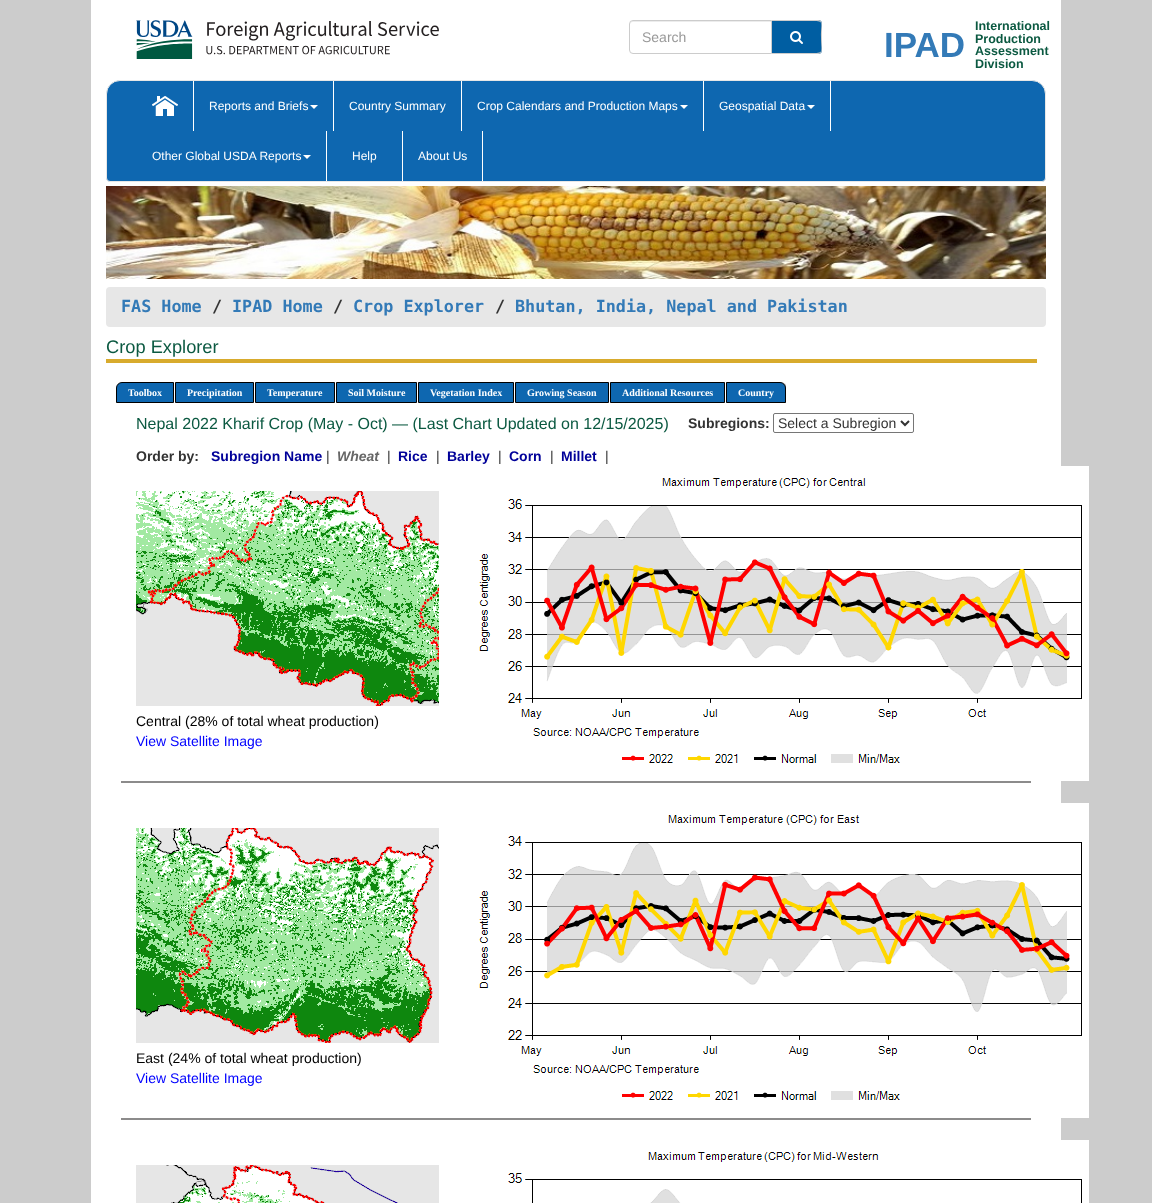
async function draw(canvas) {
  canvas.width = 1152
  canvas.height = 1203
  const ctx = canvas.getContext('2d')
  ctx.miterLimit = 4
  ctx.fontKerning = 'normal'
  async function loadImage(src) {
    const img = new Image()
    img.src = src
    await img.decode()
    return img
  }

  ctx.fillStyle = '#ccc'
  ctx.fillRect(0, 0, 1152, 1203)
  ctx.fillStyle = '#fff'
  ctx.fillRect(91, 0, 970, 1203)
  ctx.drawImage(await loadImage('image0.png'), 136, 20, 303, 39)
  ctx.fillStyle = '#ececec'
  ctx.beginPath()
  ctx.moveTo(633, 22)
  ctx.lineTo(771, 22)
  ctx.lineTo(771, 21)
  ctx.lineTo(633, 21)
  ctx.bezierCurveTo(631, 21, 630, 23, 630, 25)
  ctx.bezierCurveTo(630, 23, 631, 22, 633, 22)
  ctx.closePath()
  ctx.fill()
  ctx.beginPath()
  ctx.roundRect(629.5, 20.5, 142, 33, [3.5, 0, 0, 3.5])
  ctx.strokeStyle = '#ccc'
  ctx.stroke()
  ctx.font = '14px Liberation Sans'
  ctx.fillStyle = '#999'
  ctx.fillText('Search', 642, 42)
  ctx.fillStyle = '#005ea2'
  ctx.beginPath()
  ctx.roundRect(772, 20, 50, 34, [0, 4, 4, 0])
  ctx.fill()
  ctx.fillStyle = '#ccc'
  ctx.beginPath()
  ctx.moveTo(772, 20)
  ctx.lineTo(818, 20)
  ctx.bezierCurveTo(820, 20, 822, 22, 822, 24)
  ctx.lineTo(822, 50)
  ctx.bezierCurveTo(822, 52, 820, 54, 818, 54)
  ctx.lineTo(772, 54)
  ctx.closePath()
  ctx.moveTo(772, 21)
  ctx.lineTo(810, 21)
  ctx.bezierCurveTo(825, 21, 821, 21, 821, 37)
  ctx.bezierCurveTo(821, 53, 825, 53, 810, 53)
  ctx.lineTo(772, 53)
  ctx.closePath()
  ctx.fill('evenodd')
  ctx.drawImage(await loadImage('image1.png'), 790, 31, 13, 13)
  ctx.font = 'bold 35px Liberation Sans'
  ctx.fillStyle = '#337ab7'
  ctx.fillText('IPAD', 884, 57)
  ctx.font = 'bold 12.5px Liberation Sans'
  ctx.fillStyle = '#0b5941'
  ctx.fillText('International', 975, 30)
  ctx.fillText('Production', 975, 43)
  ctx.fillText('Assessment', 975, 55)
  ctx.fillText('Division', 975, 68)
  ctx.fillStyle = '#0e67b0'
  ctx.beginPath()
  ctx.roundRect(106.5, 80.5, 939, 101, [13.5, 13.5, 3.5, 3.5])
  ctx.fill()
  ctx.strokeStyle = '#e7e7e7'
  ctx.stroke()
  ctx.fillStyle = '#fff'
  ctx.fillRect(193, 81, 1, 50)
  ctx.drawImage(await loadImage('image2.png'), 152, 96, 26, 20)
  ctx.fillRect(333, 81, 1, 50)
  ctx.font = '12px Liberation Sans'
  ctx.fillText('Reports and Briefs', 209, 110)
  ctx.beginPath()
  ctx.moveTo(310, 105)
  ctx.lineTo(318, 105)
  ctx.lineTo(314, 109)
  ctx.closePath()
  ctx.fill()
  ctx.fillRect(461, 81, 1, 50)
  ctx.fillText('Country Summary', 349, 110)
  ctx.fillRect(703, 81, 1, 50)
  ctx.fillText('Crop Calendars and Production Maps', 477, 110)
  ctx.beginPath()
  ctx.moveTo(680, 105)
  ctx.lineTo(688, 105)
  ctx.lineTo(684, 109)
  ctx.closePath()
  ctx.fill()
  ctx.fillRect(830, 81, 1, 50)
  ctx.fillText('Geospatial Data', 719, 110)
  ctx.beginPath()
  ctx.moveTo(807, 105)
  ctx.lineTo(815, 105)
  ctx.lineTo(811, 109)
  ctx.closePath()
  ctx.fill()
  ctx.fillRect(326, 131, 1, 50)
  ctx.fillText('Other Global USDA Reports', 152, 160)
  ctx.beginPath()
  ctx.moveTo(303, 155)
  ctx.lineTo(311, 155)
  ctx.lineTo(307, 159)
  ctx.closePath()
  ctx.fill()
  ctx.fillRect(402, 131, 1, 50)
  ctx.fillText('Help', 352, 160)
  ctx.fillRect(482, 131, 1, 50)
  ctx.fillText('About Us', 418, 160)
  ctx.drawImage(await loadImage('image3.png'), 106, 186, 940, 93)
  ctx.fillStyle = '#e7e7e7'
  ctx.beginPath()
  ctx.roundRect(106, 287, 940, 40, 4)
  ctx.fill()
  ctx.font = 'bold 16.75px DejaVu Sans Mono'
  ctx.fillStyle = '#337ab7'
  ctx.fillText('FAS Home', 121, 312)
  ctx.fillStyle = '#333'
  ctx.fillText('/', 212, 312)
  ctx.fillStyle = '#337ab7'
  ctx.fillText('IPAD Home', 232, 312)
  ctx.fillStyle = '#333'
  ctx.fillText('/', 333, 312)
  ctx.fillStyle = '#337ab7'
  ctx.fillText('Crop Explorer', 353, 312)
  ctx.fillStyle = '#333'
  ctx.fillText('/', 495, 312)
  ctx.fillStyle = '#337ab7'
  ctx.fillText('Bhutan, India, Nepal and Pakistan', 515, 312)
  ctx.fillStyle = '#d8ab2d'
  ctx.fillRect(106, 359, 931, 4)
  ctx.font = '18.25px Liberation Sans'
  ctx.fillStyle = '#0b5941'
  ctx.fillText('Crop Explorer', 106, 353)
  ctx.fillStyle = '#0e67b0'
  ctx.beginPath()
  ctx.roundRect(116.5, 382.5, 57, 20, [5.5, 0, 0, 0])
  ctx.fill()
  ctx.strokeStyle = '#000'
  ctx.stroke()
  ctx.font = 'bold 10px Liberation Serif'
  ctx.fillStyle = '#fff'
  ctx.fillText('Toolbox', 128, 396)
  ctx.fillStyle = '#0e67b0'
  ctx.beginPath()
  ctx.rect(175.5, 382.5, 78, 20)
  ctx.fill()
  ctx.stroke()
  ctx.fillStyle = '#fff'
  ctx.fillText('Precipitation', 187, 396)
  ctx.fillStyle = '#0e67b0'
  ctx.beginPath()
  ctx.rect(255.5, 382.5, 79, 20)
  ctx.fill()
  ctx.stroke()
  ctx.fillStyle = '#fff'
  ctx.fillText('Temperature', 267, 396)
  ctx.fillStyle = '#0e67b0'
  ctx.beginPath()
  ctx.rect(336.5, 382.5, 80, 20)
  ctx.fill()
  ctx.stroke()
  ctx.fillStyle = '#fff'
  ctx.fillText('Soil Moisture', 348, 396)
  ctx.fillStyle = '#0e67b0'
  ctx.beginPath()
  ctx.rect(418.5, 382.5, 95, 20)
  ctx.fill()
  ctx.stroke()
  ctx.fillStyle = '#fff'
  ctx.fillText('Vegetation Index', 430, 396)
  ctx.fillStyle = '#0e67b0'
  ctx.beginPath()
  ctx.rect(515.5, 382.5, 93, 20)
  ctx.fill()
  ctx.stroke()
  ctx.fillStyle = '#fff'
  ctx.fillText('Growing Season', 527, 396)
  ctx.fillStyle = '#0e67b0'
  ctx.beginPath()
  ctx.rect(610.5, 382.5, 114, 20)
  ctx.fill()
  ctx.stroke()
  ctx.fillStyle = '#fff'
  ctx.fillText('Additional Resources', 622, 396)
  ctx.fillStyle = '#c8c8c8'
  ctx.beginPath()
  ctx.roundRect(726, 382, 61, 21, [0, 6, 0, 0])
  ctx.fill()
  ctx.fillStyle = '#fff'
  ctx.fillRect(786, 385, 1, 18)
  ctx.fillStyle = '#0e67b0'
  ctx.beginPath()
  ctx.roundRect(726.5, 382.5, 59, 20, [0, 5.5, 0, 0])
  ctx.fill()
  ctx.stroke()
  ctx.fillStyle = '#fff'
  ctx.fillText('Country', 738, 396)
  ctx.font = '16px Liberation Sans'
  ctx.fillStyle = '#0b5941'
  ctx.fillText('Nepal 2022 Kharif Crop (May - Oct) — (Last Chart Updated on 12/15/2025)', 136, 429)
  ctx.font = 'bold 14px Liberation Sans'
  ctx.fillStyle = '#333'
  ctx.fillText('Subregions:', 688, 428)
  ctx.beginPath()
  ctx.roundRect(773.5, 413.5, 140, 19, 1.5)
  ctx.strokeStyle = '#767676'
  ctx.stroke()
  ctx.beginPath()
  ctx.moveTo(901, 421)
  ctx.lineTo(905, 425)
  ctx.lineTo(909, 421)
  ctx.strokeStyle = '#333'
  ctx.lineWidth = 2
  ctx.stroke()
  ctx.font = '14px Liberation Sans'
  ctx.fillText('Select a Subregion', 778, 428)
  ctx.font = 'bold 14px Liberation Sans'
  ctx.fillText('Order by:', 136, 461)
  ctx.fillStyle = '#009'
  ctx.fillText('Subregion Name', 211, 461)
  ctx.font = '14px Liberation Sans'
  ctx.fillStyle = '#333'
  ctx.fillText('|', 326, 461)
  ctx.font = 'italic bold 14px Liberation Sans'
  ctx.fillStyle = '#666'
  ctx.fillText('Wheat', 337, 461)
  ctx.font = '14px Liberation Sans'
  ctx.fillStyle = '#333'
  ctx.fillText('|', 387, 461)
  ctx.font = 'bold 14px Liberation Sans'
  ctx.fillStyle = '#009'
  ctx.fillText('Rice', 398, 461)
  ctx.font = '14px Liberation Sans'
  ctx.fillStyle = '#333'
  ctx.fillText('|', 436, 461)
  ctx.font = 'bold 14px Liberation Sans'
  ctx.fillStyle = '#009'
  ctx.fillText('Barley', 447, 461)
  ctx.font = '14px Liberation Sans'
  ctx.fillStyle = '#333'
  ctx.fillText('|', 498, 461)
  ctx.font = 'bold 14px Liberation Sans'
  ctx.fillStyle = '#009'
  ctx.fillText('Corn', 509, 461)
  ctx.font = '14px Liberation Sans'
  ctx.fillStyle = '#333'
  ctx.fillText('|', 550, 461)
  ctx.font = 'bold 14px Liberation Sans'
  ctx.fillStyle = '#009'
  ctx.fillText('Millet', 561, 461)
  ctx.font = '14px Liberation Sans'
  ctx.fillStyle = '#333'
  ctx.fillText('|', 605, 461)
  ctx.drawImage(await loadImage('image4.png'), 136, 491, 303, 215)
  ctx.fillStyle = '#000'
  ctx.fillText('Central (28% of total wheat production)', 136, 726)
  ctx.fillStyle = '#00f'
  ctx.fillText('View Satellite Image', 136, 746)
  ctx.drawImage(await loadImage('image5.png'), 439, 466, 650, 315)
  ctx.fillStyle = '#8c8b8b'
  ctx.fillRect(121, 781, 910, 2)
  ctx.drawImage(await loadImage('image6.png'), 136, 828, 303, 215)
  ctx.fillStyle = '#000'
  ctx.fillText('East (24% of total wheat production)', 136, 1063)
  ctx.fillStyle = '#00f'
  ctx.fillText('View Satellite Image', 136, 1083)
  ctx.drawImage(await loadImage('image7.png'), 439, 803, 650, 315)
  ctx.fillStyle = '#8c8b8b'
  ctx.fillRect(121, 1118, 910, 2)
  ctx.drawImage(await loadImage('image8.png'), 136, 1165, 303, 38)
  ctx.drawImage(await loadImage('image9.png'), 439, 1140, 650, 63)
}

draw(document.querySelector('canvas'))
